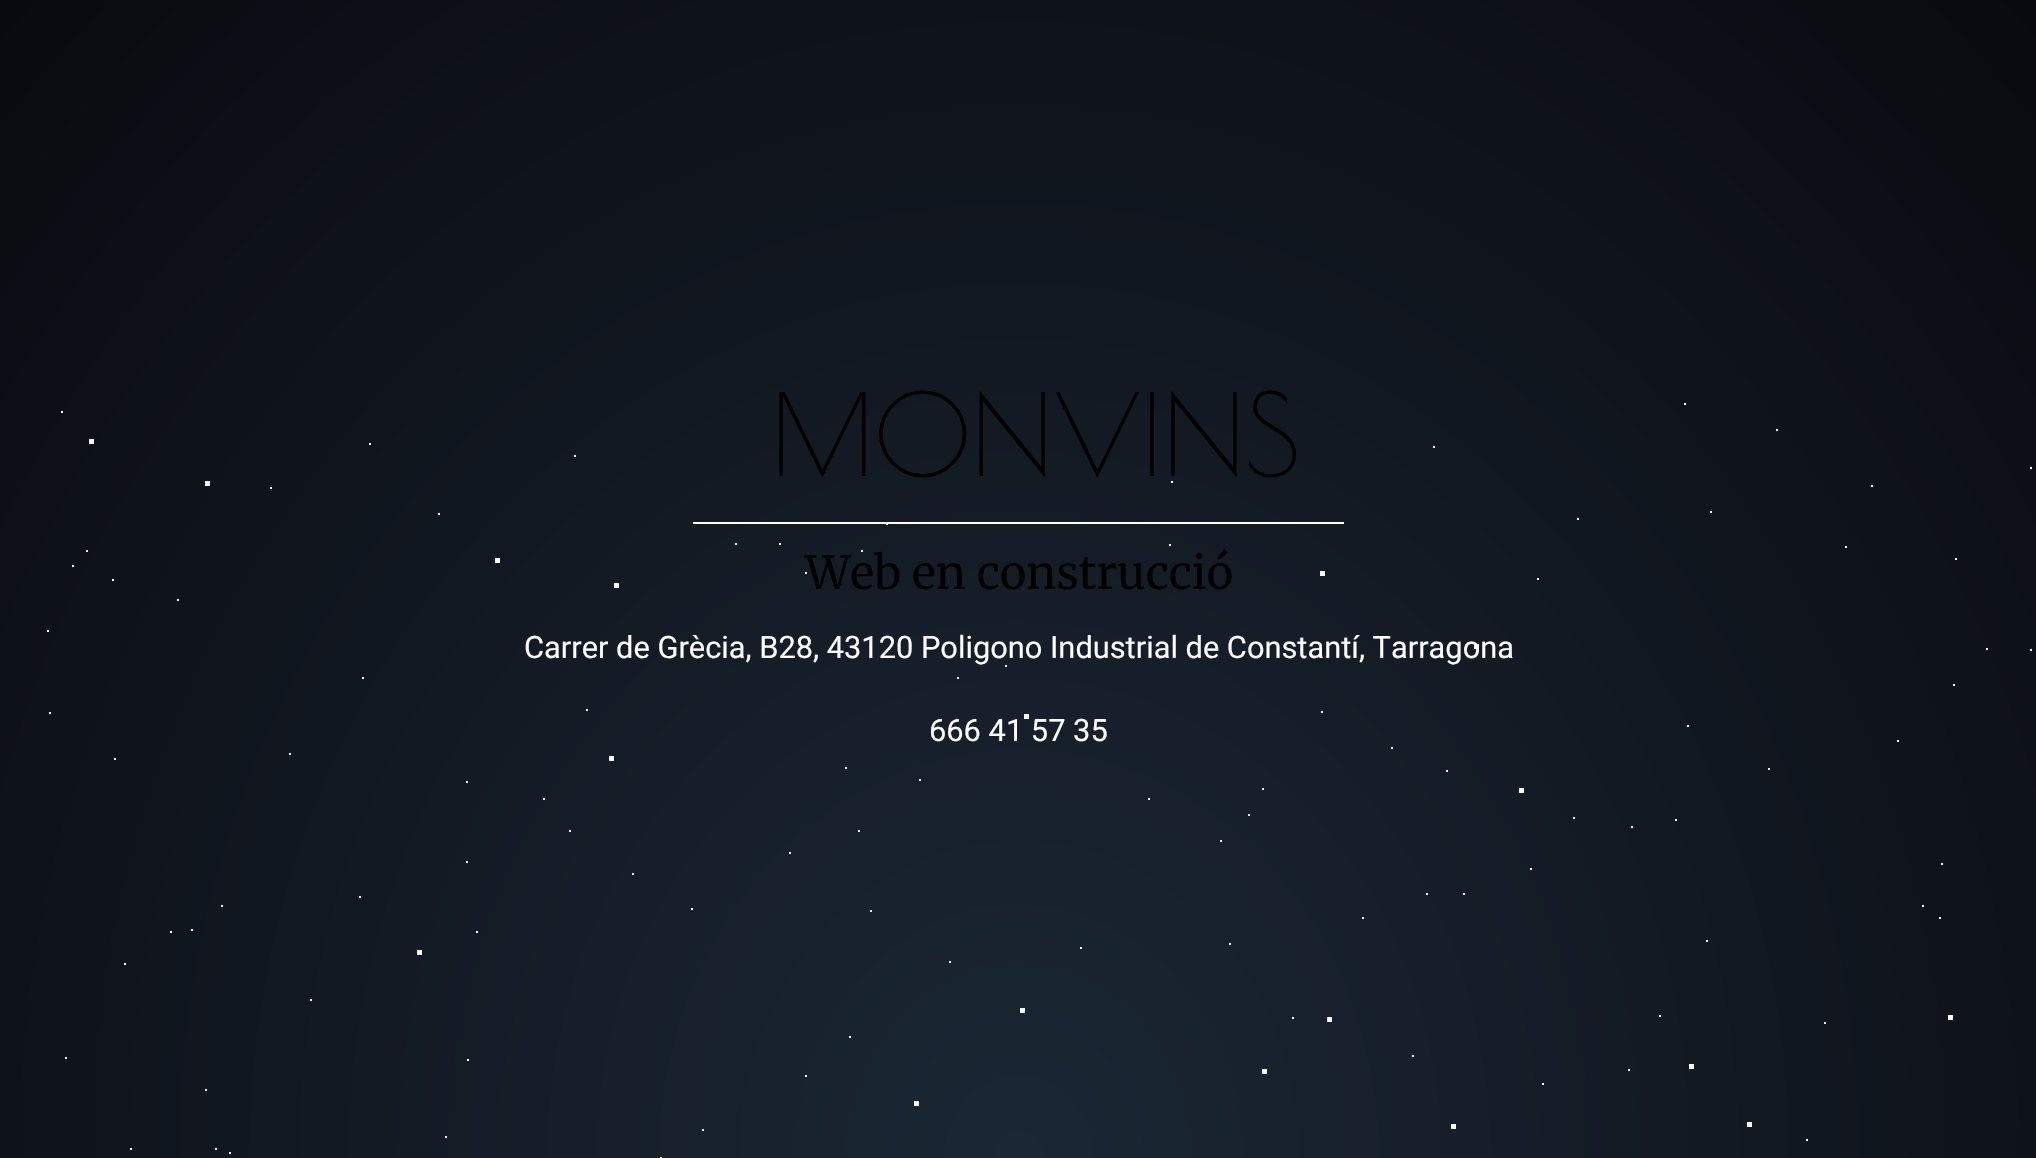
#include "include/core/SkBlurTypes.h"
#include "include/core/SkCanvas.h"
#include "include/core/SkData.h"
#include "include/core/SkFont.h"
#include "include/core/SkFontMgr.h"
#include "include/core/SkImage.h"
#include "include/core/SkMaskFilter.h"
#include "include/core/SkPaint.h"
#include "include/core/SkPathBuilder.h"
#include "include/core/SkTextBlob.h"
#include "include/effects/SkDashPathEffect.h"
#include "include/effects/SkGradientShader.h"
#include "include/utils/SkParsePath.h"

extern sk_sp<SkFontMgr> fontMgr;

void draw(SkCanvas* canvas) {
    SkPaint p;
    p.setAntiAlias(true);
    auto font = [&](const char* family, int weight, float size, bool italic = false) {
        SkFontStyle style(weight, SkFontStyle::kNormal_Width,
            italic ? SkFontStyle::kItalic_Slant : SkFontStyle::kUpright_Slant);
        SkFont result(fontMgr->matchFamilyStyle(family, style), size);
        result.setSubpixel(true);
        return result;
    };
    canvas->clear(0xFFFFFFFF);
    {
        const SkColor colors[] = {0xFF1B2735, 0xFF090A0F};
        const float stops[] = {0, 1};
        SkMatrix m = SkMatrix::Translate(1019, 1159).preScale(1440, 1638);
        p.setShader(SkGradientShader::MakeRadial({0, 0}, 1, colors, stops, 2, SkTileMode::kClamp, 0, &m));
        p.setAlpha(255);
    }
    canvas->drawRect(SkRect::MakeLTRB(0, 0, 2036, 1158), p);
    p.setShader(nullptr);
    p.setColor(0xFFFFFFFF);
    canvas->drawRect(SkRect::MakeLTRB(1022, 446, 1024, 448), p);
    auto font1 = font("Poiret One", 400, 112);
    p.setColor(0xFF000000);
    canvas->drawString("MONVINS", 771, 476, font1, p);
    {
        const struct { float l, t, r, b; SkColor color; } items[] = {
            {693, 522, 1344, 524, 0xFFFFFFFF},
            {805, 572, 807, 574, 0xFFFFFFFF},
            {861, 550, 863, 552, 0xFFFFFFFF},
        };
        for (auto [l, t, r, b, color] : items) {
            p.setColor(color);
            canvas->drawRect(SkRect::MakeLTRB(l, t, r, b), p);
        }
    }
    auto font2 = font("Merriweather", 400, 45.5f);
    p.setColor(0xFF000000);
    canvas->drawString("Web en construcció", 805, 589, font2, p);
    {
        const struct { float l, t, r, b; SkColor color; } items[] = {
            {130, 1148, 132, 1150, 0xFFFFFFFF},
            {1292, 1017, 1294, 1019, 0xFFFFFFFF},
            {215, 1148, 217, 1150, 0xFFFFFFFF},
            {1897, 740, 1899, 742, 0xFFFFFFFF},
            {1391, 747, 1393, 749, 0xFFFFFFFF},
            {112, 579, 114, 581, 0xFFFFFFFF},
            {65, 1057, 67, 1059, 0xFFFFFFFF},
            {1706, 940, 1708, 942, 0xFFFFFFFF},
            {445, 1136, 447, 1138, 0xFFFFFFFF},
            {362, 677, 364, 679, 0xFFFFFFFF},
            {543, 798, 545, 800, 0xFFFFFFFF},
            {1362, 917, 1364, 919, 0xFFFFFFFF},
            {574, 455, 576, 457, 0xFFFFFFFF},
            {1169, 544, 1171, 546, 0xFFFFFFFF},
            {1229, 943, 1231, 945, 0xFFFFFFFF},
            {1628, 1069, 1630, 1071, 0xFFFFFFFF},
            {1939, 917, 1941, 919, 0xFFFFFFFF},
            {1446, 770, 1448, 772, 0xFFFFFFFF},
            {47, 630, 49, 632, 0xFFFFFFFF},
            {476, 931, 478, 933, 0xFFFFFFFF},
            {949, 961, 951, 963, 0xFFFFFFFF},
            {114, 758, 116, 760, 0xFFFFFFFF},
            {702, 1129, 704, 1131, 0xFFFFFFFF},
            {1824, 1022, 1826, 1024, 0xFFFFFFFF},
            {1321, 711, 1323, 713, 0xFFFFFFFF},
            {660, 1157, 662, 1158, 0xFFFFFFFF},
            {2030, 649, 2032, 651, 0xFFFFFFFF},
            {170, 931, 172, 933, 0xFFFFFFFF},
            {632, 873, 634, 875, 0xFFFFFFFF},
            {1806, 1139, 1808, 1141, 0xFFFFFFFF},
            {1953, 684, 1955, 686, 0xFFFFFFFF},
            {957, 677, 959, 679, 0xFFFFFFFF},
            {1631, 826, 1633, 828, 0xFFFFFFFF},
            {1262, 788, 1264, 790, 0xFFFFFFFF},
            {1776, 429, 1778, 431, 0xFFFFFFFF},
            {1148, 798, 1150, 800, 0xFFFFFFFF},
            {1433, 446, 1435, 448, 0xFFFFFFFF},
            {467, 1059, 469, 1061, 0xFFFFFFFF},
            {1986, 648, 1988, 650, 0xFFFFFFFF},
            {177, 599, 179, 601, 0xFFFFFFFF},
            {229, 1152, 231, 1154, 0xFFFFFFFF},
            {1687, 725, 1689, 727, 0xFFFFFFFF},
            {1577, 518, 1579, 520, 0xFFFFFFFF},
            {1537, 578, 1539, 580, 0xFFFFFFFF},
            {1220, 840, 1222, 842, 0xFFFFFFFF},
            {1171, 481, 1173, 483, 0xFFFFFFFF},
            {1426, 893, 1428, 895, 0xFFFFFFFF},
            {289, 753, 291, 755, 0xFFFFFFFF},
            {1005, 665, 1007, 667, 0xFFFFFFFF},
            {1530, 868, 1532, 870, 0xFFFFFFFF},
            {49, 712, 51, 714, 0xFFFFFFFF},
            {1675, 819, 1677, 821, 0xFFFFFFFF},
            {466, 861, 468, 863, 0xFFFFFFFF},
            {1922, 905, 1924, 907, 0xFFFFFFFF},
            {586, 709, 588, 711, 0xFFFFFFFF},
            {1845, 546, 1847, 548, 0xFFFFFFFF},
            {1573, 817, 1575, 819, 0xFFFFFFFF},
            {2030, 467, 2032, 469, 0xFFFFFFFF},
            {191, 929, 193, 931, 0xFFFFFFFF},
            {919, 779, 921, 781, 0xFFFFFFFF},
            {735, 543, 737, 545, 0xFFFFFFFF},
            {805, 1075, 807, 1077, 0xFFFFFFFF},
            {221, 905, 223, 907, 0xFFFFFFFF},
            {845, 767, 847, 769, 0xFFFFFFFF},
            {1941, 863, 1943, 865, 0xFFFFFFFF},
            {270, 487, 272, 489, 0xFFFFFFFF},
            {1463, 893, 1465, 895, 0xFFFFFFFF},
            {61, 411, 63, 413, 0xFFFFFFFF},
            {691, 908, 693, 910, 0xFFFFFFFF},
            {369, 443, 371, 445, 0xFFFFFFFF},
            {1659, 1015, 1661, 1017, 0xFFFFFFFF},
            {1080, 947, 1082, 949, 0xFFFFFFFF},
            {438, 513, 440, 515, 0xFFFFFFFF},
            {1710, 511, 1712, 513, 0xFFFFFFFF},
            {779, 543, 781, 545, 0xFFFFFFFF},
            {72, 565, 74, 567, 0xFFFFFFFF},
            {205, 1089, 207, 1091, 0xFFFFFFFF},
            {1955, 558, 1957, 560, 0xFFFFFFFF},
            {886, 524, 888, 525, 0xFFFFFFFF},
            {870, 910, 872, 912, 0xFFFFFFFF},
            {849, 1036, 851, 1038, 0xFFFFFFFF},
            {1871, 485, 1873, 487, 0xFFFFFFFF},
            {858, 830, 860, 832, 0xFFFFFFFF},
            {789, 852, 791, 854, 0xFFFFFFFF},
            {569, 830, 571, 832, 0xFFFFFFFF},
            {310, 999, 312, 1001, 0xFFFFFFFF},
            {359, 896, 361, 898, 0xFFFFFFFF},
            {1768, 768, 1770, 770, 0xFFFFFFFF},
            {466, 781, 468, 783, 0xFFFFFFFF},
            {1248, 814, 1250, 816, 0xFFFFFFFF},
            {86, 550, 88, 552, 0xFFFFFFFF},
            {1684, 403, 1686, 405, 0xFFFFFFFF},
            {1412, 1055, 1414, 1057, 0xFFFFFFFF},
            {124, 963, 126, 965, 0xFFFFFFFF},
            {1542, 1083, 1544, 1085, 0xFFFFFFFF},
            {495, 558, 500, 563, 0xFFFFFFFF},
            {1519, 788, 1524, 793, 0xFFFFFFFF},
            {1327, 1017, 1332, 1022, 0xFFFFFFFF},
            {89, 439, 94, 444, 0xFFFFFFFF},
            {1262, 1069, 1267, 1074, 0xFFFFFFFF},
            {1689, 1064, 1694, 1069, 0xFFFFFFFF},
            {1948, 1015, 1953, 1020, 0xFFFFFFFF},
            {205, 481, 210, 486, 0xFFFFFFFF},
            {1020, 1008, 1025, 1013, 0xFFFFFFFF},
            {1024, 714, 1029, 719, 0xFFFFFFFF},
            {614, 583, 619, 588, 0xFFFFFFFF},
            {914, 1101, 919, 1106, 0xFFFFFFFF},
            {1747, 1122, 1752, 1127, 0xFFFFFFFF},
            {1320, 571, 1325, 576, 0xFFFFFFFF},
            {417, 950, 422, 955, 0xFFFFFFFF},
            {609, 756, 614, 761, 0xFFFFFFFF},
            {1451, 1124, 1456, 1129, 0xFFFFFFFF},
            {1474, 644, 1479, 649, 0xFFFFFFFF},
        };
        for (auto [l, t, r, b, color] : items) {
            p.setColor(color);
            canvas->drawRect(SkRect::MakeLTRB(l, t, r, b), p);
        }
    }
    auto font3 = font("Roboto", 400, 30.8f);
    canvas->drawString("Carrer de Grècia, B28, 43120 Poligono Industrial de Constantí, Tarragona", 524, 658, font3, p);
    canvas->drawString("666 41 57 35", 929, 741, font3, p);
}
